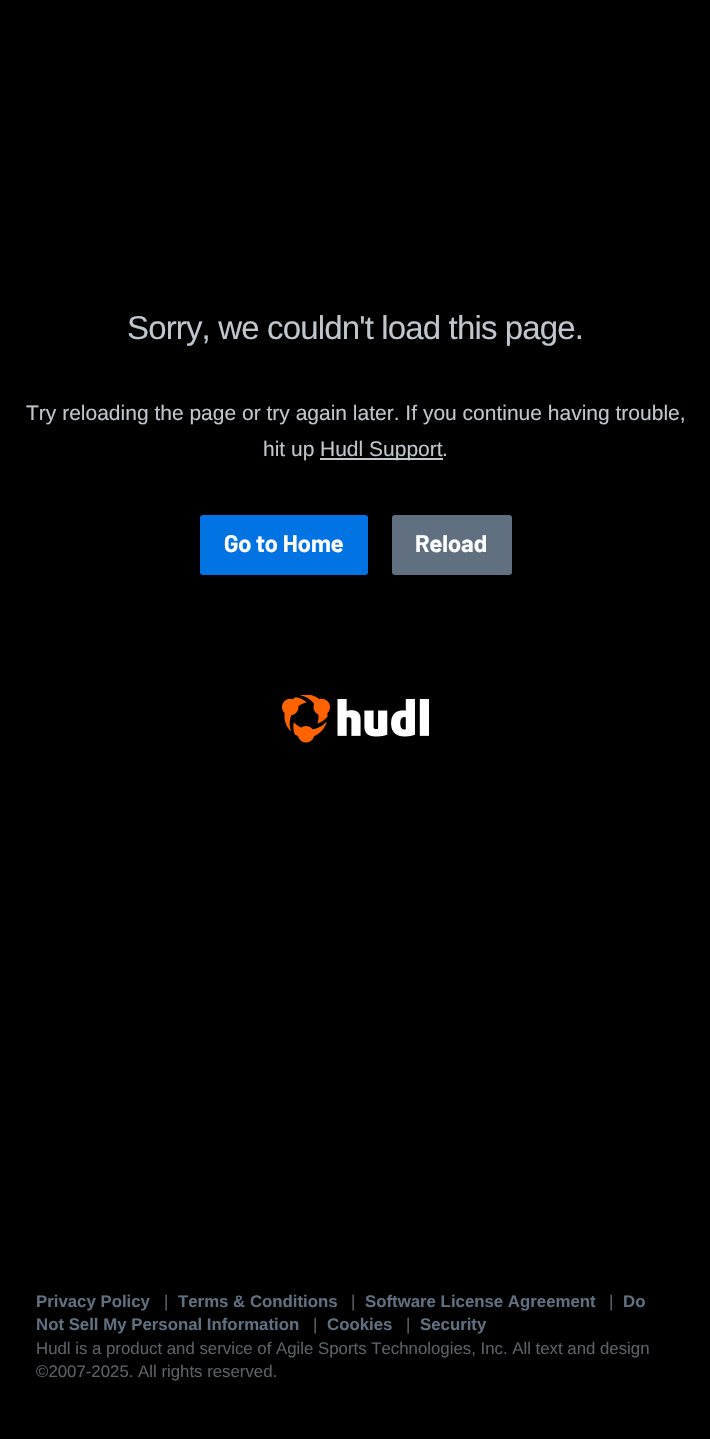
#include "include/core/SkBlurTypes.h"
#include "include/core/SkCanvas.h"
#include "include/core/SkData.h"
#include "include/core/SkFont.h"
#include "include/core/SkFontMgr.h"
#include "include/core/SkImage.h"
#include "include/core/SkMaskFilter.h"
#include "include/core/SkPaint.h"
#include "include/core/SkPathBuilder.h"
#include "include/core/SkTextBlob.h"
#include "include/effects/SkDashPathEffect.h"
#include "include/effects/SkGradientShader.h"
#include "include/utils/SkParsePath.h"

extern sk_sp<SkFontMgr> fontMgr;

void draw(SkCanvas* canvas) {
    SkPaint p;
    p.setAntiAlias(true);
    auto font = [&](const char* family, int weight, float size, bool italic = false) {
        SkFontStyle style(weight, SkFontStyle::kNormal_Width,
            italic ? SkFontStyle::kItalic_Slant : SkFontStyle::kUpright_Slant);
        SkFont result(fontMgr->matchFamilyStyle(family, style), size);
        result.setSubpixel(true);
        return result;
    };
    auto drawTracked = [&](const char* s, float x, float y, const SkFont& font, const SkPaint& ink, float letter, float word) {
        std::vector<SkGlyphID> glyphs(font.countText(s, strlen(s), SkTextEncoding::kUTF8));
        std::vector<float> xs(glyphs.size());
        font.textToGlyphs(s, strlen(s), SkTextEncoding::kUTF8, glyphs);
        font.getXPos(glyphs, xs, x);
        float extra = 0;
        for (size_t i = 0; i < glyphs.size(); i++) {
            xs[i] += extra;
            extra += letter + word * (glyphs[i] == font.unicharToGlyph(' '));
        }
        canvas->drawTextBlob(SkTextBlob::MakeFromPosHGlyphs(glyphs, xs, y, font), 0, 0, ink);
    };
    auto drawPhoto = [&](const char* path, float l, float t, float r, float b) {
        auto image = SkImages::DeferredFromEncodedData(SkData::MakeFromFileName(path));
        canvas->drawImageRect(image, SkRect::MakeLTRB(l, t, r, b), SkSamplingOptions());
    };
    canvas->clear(0xFF000000);
    auto font1 = font("Liberation Sans", 400, 33);
    p.setColor(0xFFC0C6CD);
    drawTracked("Sorry, we couldn't load this page.", 127, 339, font1, p, -0.85f, 0);
    auto font2 = font("Liberation Sans", 400, 21);
    canvas->drawString("Try reloading the page or try again later. If you continue having trouble,", 26, 420, font2, p);
    canvas->drawString("hit up", 263, 456, font2, p);
    canvas->drawRect(SkRect::MakeLTRB(320, 458, 443, 460), p);
    canvas->drawString("Hudl Support", 320, 456, font2, p);
    canvas->drawString(".", 442, 456, font2, p);
    p.setColor(0xFF0273E3);
    canvas->drawRoundRect(SkRect::MakeLTRB(200, 515, 368, 575), 3, 3, p);
    auto font3 = font("Barlow", 700, 24);
    p.setColor(0xFFFEFEFE);
    canvas->drawString("Go to Home", 224, 552, font3, p);
    p.setColor(0xFF607081);
    canvas->drawRoundRect(SkRect::MakeLTRB(392, 515, 512, 575), 3, 3, p);
    p.setColor(0xFFFEFEFE);
    canvas->drawString("Reload", 415, 552, font3, p);
    drawPhoto("media/1.png", 282, 695, 429, 743);
    auto font4 = font("Liberation Sans", 700, 16.8f);
    p.setColor(0xFF607081);
    canvas->drawString("Privacy Policy", 36, 1307, font4, p);
    auto font5 = font("Liberation Sans", 400, 16.8f);
    p.setColor(0xFF5C6166);
    canvas->drawString("|", 164, 1307, font5, p);
    p.setColor(0xFF607081);
    canvas->drawString("Terms & Conditions", 178, 1307, font4, p);
    p.setColor(0xFF5C6166);
    canvas->drawString("|", 351, 1307, font5, p);
    p.setColor(0xFF607081);
    canvas->drawString("Software License Agreement", 365, 1307, font4, p);
    p.setColor(0xFF5C6166);
    canvas->drawString("|", 609, 1307, font5, p);
    p.setColor(0xFF607081);
    canvas->drawString("Do", 623, 1307, font4, p);
    canvas->drawString("Not Sell My Personal Information", 36, 1330, font4, p);
    p.setColor(0xFF5C6166);
    canvas->drawString("|", 313, 1330, font5, p);
    p.setColor(0xFF607081);
    canvas->drawString("Cookies", 327, 1330, font4, p);
    p.setColor(0xFF5C6166);
    canvas->drawString("|", 406, 1330, font5, p);
    p.setColor(0xFF607081);
    canvas->drawString("Security", 420, 1330, font4, p);
    p.setColor(0xFF5C6166);
    canvas->drawString("Hudl is a product and service of Agile Sports Technologies, Inc. All text and design", 36, 1354, font5, p);
    canvas->drawString("©2007-2025. All rights reserved.", 36, 1377, font5, p);
}
